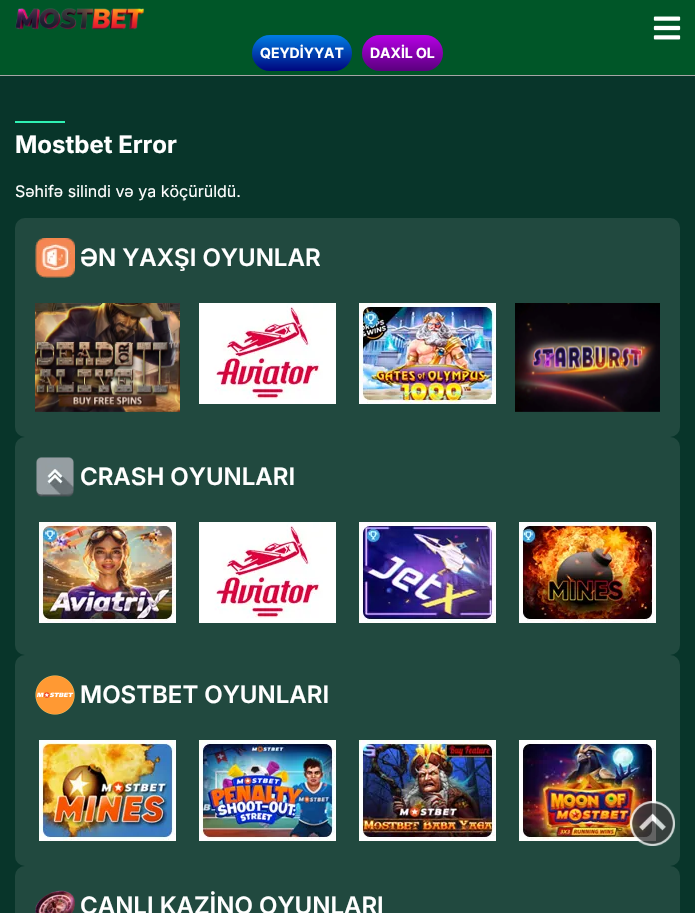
#include "include/core/SkBlurTypes.h"
#include "include/core/SkCanvas.h"
#include "include/core/SkData.h"
#include "include/core/SkFont.h"
#include "include/core/SkFontMgr.h"
#include "include/core/SkImage.h"
#include "include/core/SkMaskFilter.h"
#include "include/core/SkPaint.h"
#include "include/core/SkPathBuilder.h"
#include "include/core/SkTextBlob.h"
#include "include/effects/SkDashPathEffect.h"
#include "include/effects/SkGradientShader.h"
#include "include/utils/SkParsePath.h"

extern sk_sp<SkFontMgr> fontMgr;

void draw(SkCanvas* canvas) {
    SkPaint p;
    p.setAntiAlias(true);
    auto font = [&](const char* family, int weight, float size, bool italic = false) {
        SkFontStyle style(weight, SkFontStyle::kNormal_Width,
            italic ? SkFontStyle::kItalic_Slant : SkFontStyle::kUpright_Slant);
        SkFont result(fontMgr->matchFamilyStyle(family, style), size);
        result.setSubpixel(true);
        return result;
    };
    auto drawPhoto = [&](const char* path, float l, float t, float r, float b) {
        auto image = SkImages::DeferredFromEncodedData(SkData::MakeFromFileName(path));
        canvas->drawImageRect(image, SkRect::MakeLTRB(l, t, r, b), SkSamplingOptions());
    };
    canvas->clear(0xFF08352A);
    p.setColor(0xFF005628);
    canvas->drawRect(SkRect::MakeLTRB(0, 0, 695, 75), p);
    p.setColor(0xFFA5A5A5);
    canvas->drawRect(SkRect::MakeLTRB(0, 75, 695, 76), p);
    drawPhoto("media/1.png", 15, 8, 145, 30);
    drawPhoto("media/2.png", 653, 16, 681, 40);
    {
        const SkColor colors[] = {0xFF007DE4, 0xFF00067E};
        const float stops[] = {0, 1};
        const SkPoint ends[] = {{302, 35}, {302, 71}};
        p.setShader(SkGradientShader::MakeLinear(ends, colors, stops, 2, SkTileMode::kClamp));
        p.setAlpha(255);
    }
    canvas->drawRoundRect(SkRect::MakeLTRB(252, 35, 352, 71), 18, 18, p);
    auto font1 = font("Inter", 700, 14);
    p.setShader(nullptr);
    p.setColor(0xFFFFFFFF);
    canvas->drawString("QEYDİYYAT", 260, 58, font1, p);
    {
        const SkColor colors[] = {0xFFB600E4, 0xFF5A007E};
        const float stops[] = {0, 1};
        const SkPoint ends[] = {{403, 35}, {403, 71}};
        p.setShader(SkGradientShader::MakeLinear(ends, colors, stops, 2, SkTileMode::kClamp));
        p.setAlpha(255);
    }
    canvas->drawRoundRect(SkRect::MakeLTRB(362, 35, 443, 71), 18, 18, p);
    p.setShader(nullptr);
    p.setColor(0xFFFFFFFF);
    canvas->drawString("DAXİL OL", 370, 58, font1, p);
    p.setColor(0xFF2FF2B4);
    canvas->drawRect(SkRect::MakeLTRB(15, 121, 65, 123), p);
    auto font2 = font("Inter", 700, 24);
    p.setColor(0xFFFFFFFF);
    canvas->drawString("Mostbet Error", 15, 153, font2, p);
    auto font3 = font("Inter", 400, 16);
    canvas->drawString("Səhifə silindi və ya köçürüldü.", 15, 197, font3, p);
    p.setColor(0xFF21493F);
    canvas->drawRoundRect(SkRect::MakeLTRB(15, 218, 680, 437), 10, 10, p);
    drawPhoto("media/3.png", 35, 238, 75, 278);
    auto font4 = font("Inter", 600, 24);
    p.setColor(0xFFFFFFFF);
    canvas->drawString("ƏN YAXŞI OYUNLAR", 80, 266, font4, p);
    drawPhoto("media/4.png", 35, 303, 180, 412);
    drawPhoto("media/5.png", 199, 303, 336, 404);
    drawPhoto("media/6.png", 359, 303, 496, 404);
    drawPhoto("media/7.png", 515, 303, 660, 412);
    p.setColor(0xFF21493F);
    canvas->drawRoundRect(SkRect::MakeLTRB(15, 437, 680, 655), 10, 10, p);
    drawPhoto("media/8.png", 36, 457, 74, 497);
    p.setColor(0xFFFFFFFF);
    canvas->drawString("CRASH OYUNLARI", 80, 485, font4, p);
    drawPhoto("media/9.png", 39, 522, 176, 623);
    drawPhoto("media/5.png", 199, 522, 336, 623);
    drawPhoto("media/10.png", 359, 522, 496, 623);
    drawPhoto("media/11.png", 519, 522, 656, 623);
    p.setColor(0xFF21493F);
    canvas->drawRoundRect(SkRect::MakeLTRB(15, 655, 680, 866), 10, 10, p);
    drawPhoto("media/12.png", 35, 675, 75, 715);
    p.setColor(0xFFFFFFFF);
    canvas->drawString("MOSTBET OYUNLARI", 80, 703, font4, p);
    drawPhoto("media/13.png", 39, 740, 176, 841);
    drawPhoto("media/14.png", 199, 740, 336, 841);
    drawPhoto("media/15.png", 359, 740, 496, 841);
    drawPhoto("media/16.png", 519, 740, 656, 841);
    p.setColor(0xFF21493F);
    canvas->drawRoundRect(SkRect::MakeLTRB(15, 866, 680, 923), 10, 10, p);
    drawPhoto("media/17.png", 35, 890, 75, 913);
    p.setColor(0xFFFFFFFF);
    canvas->drawString("CANLI KAZİNO OYUNLARI", 80, 914, font4, p);
    drawPhoto("media/18.png", 630, 801, 675, 846);
}
